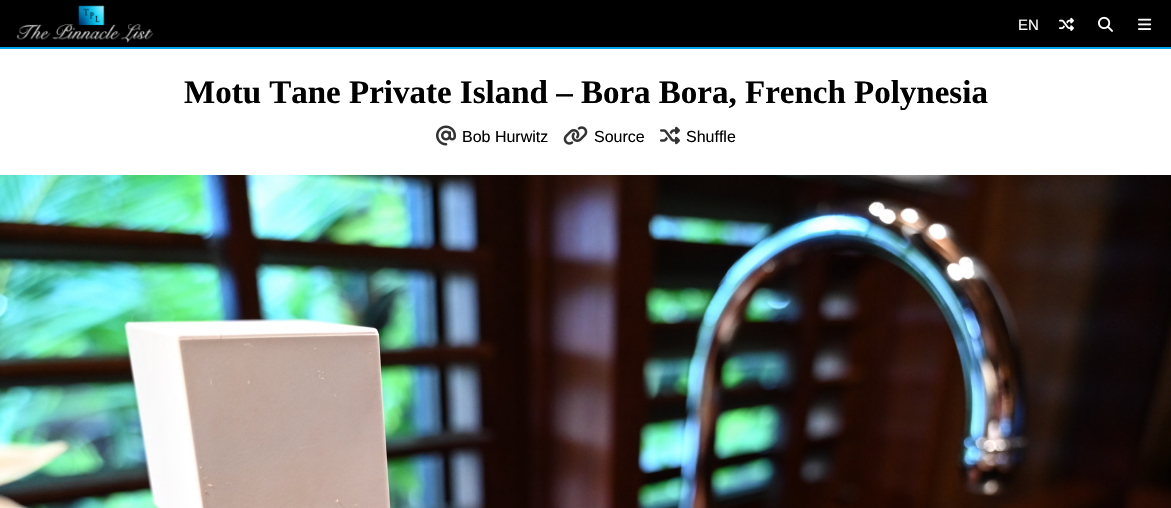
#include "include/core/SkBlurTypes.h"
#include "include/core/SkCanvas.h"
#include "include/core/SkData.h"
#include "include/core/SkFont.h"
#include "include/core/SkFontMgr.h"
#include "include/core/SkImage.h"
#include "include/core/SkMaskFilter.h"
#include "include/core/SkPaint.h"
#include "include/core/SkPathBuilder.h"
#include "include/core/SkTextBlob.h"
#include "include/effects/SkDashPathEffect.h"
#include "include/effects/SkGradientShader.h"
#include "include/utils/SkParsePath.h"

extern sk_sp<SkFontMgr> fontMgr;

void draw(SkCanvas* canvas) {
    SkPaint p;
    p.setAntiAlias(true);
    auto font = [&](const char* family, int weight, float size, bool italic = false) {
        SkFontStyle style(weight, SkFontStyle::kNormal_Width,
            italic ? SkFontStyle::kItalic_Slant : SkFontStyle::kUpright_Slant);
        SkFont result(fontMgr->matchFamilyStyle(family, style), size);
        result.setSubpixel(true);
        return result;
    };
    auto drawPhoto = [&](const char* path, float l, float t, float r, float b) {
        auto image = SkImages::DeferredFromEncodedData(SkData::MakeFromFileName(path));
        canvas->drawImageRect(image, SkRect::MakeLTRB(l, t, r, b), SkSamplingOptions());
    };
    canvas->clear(0xFF000000);
    p.setColor(0xFFFFFFFF);
    canvas->drawRect(SkRect::MakeLTRB(0, 49, 1171, 175), p);
    p.setColor(0xFF00A4E8);
    canvas->drawRect(SkRect::MakeLTRB(0, 47, 1171, 49), p);
    drawPhoto("media/1.png", 16, 5, 154, 43);
    auto font1 = font("Liberation Sans", 400, 15);
    p.setColor(0xFFFFFFFF);
    canvas->drawString("EN", 1018, 30, font1, p);
    drawPhoto("media/2.png", 1059, 17, 1074, 31);
    drawPhoto("media/3.png", 1098, 16, 1113, 32);
    drawPhoto("media/4.png", 1138, 18, 1152, 30);
    auto font2 = font("Liberation Serif", 700, 33);
    p.setColor(0xFF000000);
    canvas->drawString("Motu Tane Private Island – Bora Bora, French Polynesia", 184, 103, font2, p);
    drawPhoto("media/5.png", 436, 125, 456, 146);
    auto font3 = font("Liberation Sans", 400, 16);
    canvas->drawString("Bob Hurwitz", 462, 142, font3, p);
    drawPhoto("media/6.png", 563, 126, 588, 145);
    canvas->drawString("Source", 594, 142, font3, p);
    drawPhoto("media/7.png", 660, 126, 680, 145);
    canvas->drawString("Shuffle", 686, 142, font3, p);
    drawPhoto("media/8.png", 0, 175, 1171, 508);
}
